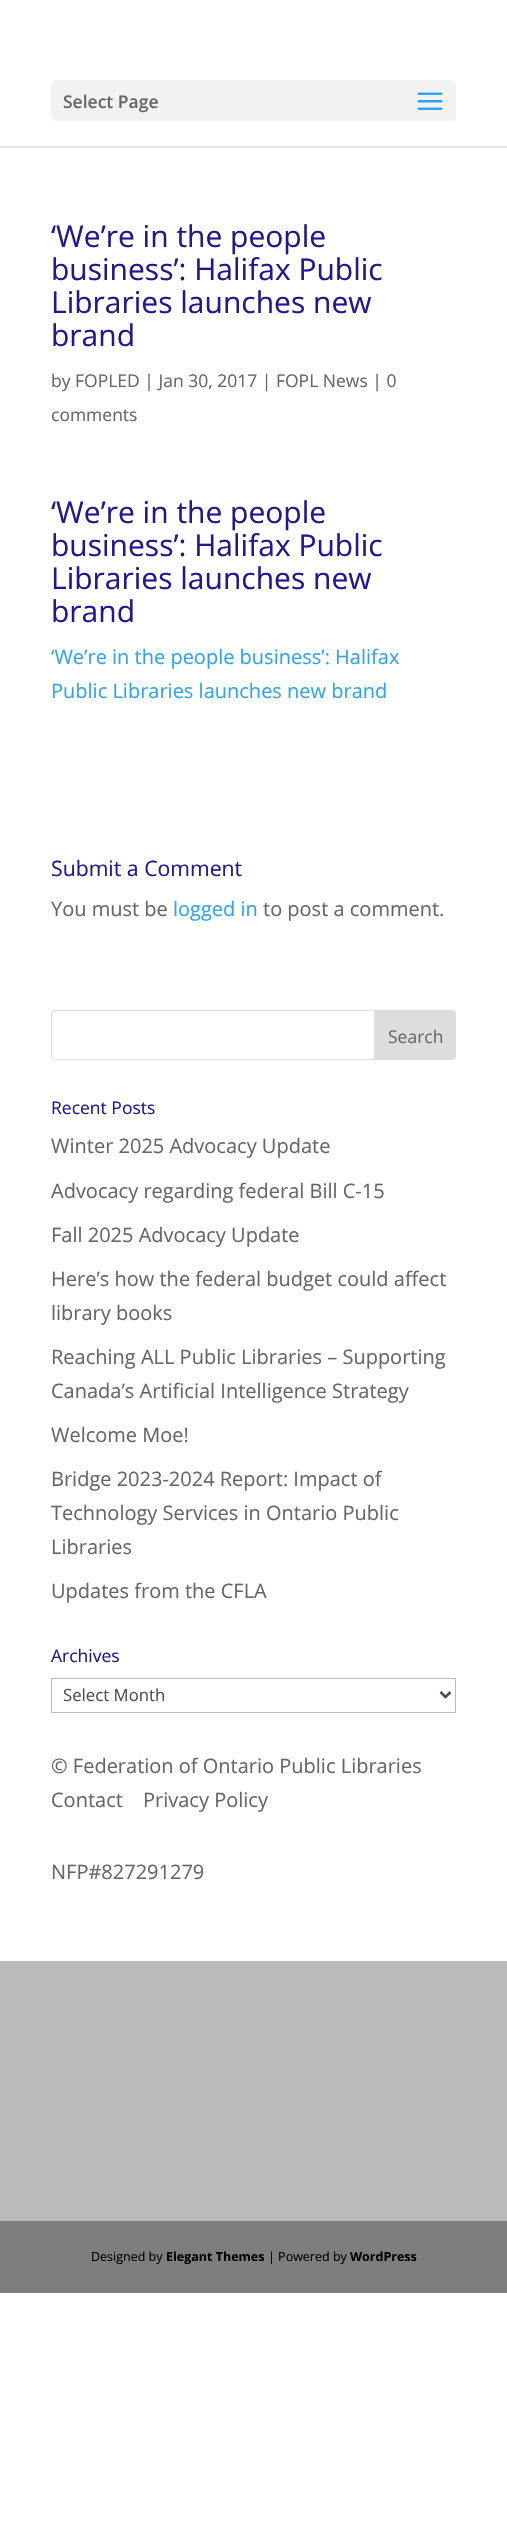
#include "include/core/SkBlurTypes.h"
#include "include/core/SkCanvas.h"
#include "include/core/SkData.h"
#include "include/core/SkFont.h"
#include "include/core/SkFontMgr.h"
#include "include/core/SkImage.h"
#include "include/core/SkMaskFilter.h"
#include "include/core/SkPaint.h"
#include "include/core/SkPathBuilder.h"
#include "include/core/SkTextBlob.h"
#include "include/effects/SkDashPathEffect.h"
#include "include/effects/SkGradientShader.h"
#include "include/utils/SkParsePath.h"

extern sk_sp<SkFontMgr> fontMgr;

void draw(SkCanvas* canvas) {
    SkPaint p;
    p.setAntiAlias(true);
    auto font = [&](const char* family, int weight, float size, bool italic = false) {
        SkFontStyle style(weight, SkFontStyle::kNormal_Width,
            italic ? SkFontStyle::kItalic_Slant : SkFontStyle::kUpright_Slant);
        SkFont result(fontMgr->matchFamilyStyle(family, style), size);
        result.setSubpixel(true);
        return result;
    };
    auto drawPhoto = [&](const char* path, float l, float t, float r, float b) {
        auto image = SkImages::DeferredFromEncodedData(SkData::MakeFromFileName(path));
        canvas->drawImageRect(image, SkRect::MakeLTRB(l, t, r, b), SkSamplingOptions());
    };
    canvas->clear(0xFFFFFFFF);
    p.setColor(0xFFE6E6E6);
    canvas->drawPath(SkPathBuilder().moveTo(0, 146).lineTo(0, 148).lineTo(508, 148).lineTo(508, 1).lineTo(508, 146).close().detach(), p);
    p.setColor(0xFFF2F2F2);
    canvas->drawRoundRect(SkRect::MakeLTRB(51, 80, 456, 121), 6, 6, p);
    auto font1 = font("Open Sans", 600, 17.5f);
    p.setColor(0xFF666666);
    canvas->drawString("Select Page", 63, 108, font1, p);
    drawPhoto("media/1.png", 417, 92, 443, 110);
    auto font2 = font("Open Sans", 400, 30);
    p.setColor(0xFF221596);
    {
        const struct { const char* s; float x, y; } items[] = {
            {"‘We’re in the people", 51, 247},
            {"business’: Halifax Public", 51, 280},
            {"Libraries launches new", 51, 313},
            {"brand", 51, 346},
        };
        for (auto [s, x, y] : items) {
            canvas->drawString(s, x, y, font2, p);
        }
    }
    auto font3 = font("Open Sans", 400, 17.5f);
    p.setColor(0xFF666666);
    canvas->drawString("by FOPLED | Jan 30, 2017 | FOPL News | 0", 51, 387, font3, p);
    canvas->drawString("comments", 51, 421, font3, p);
    p.setColor(0xFF221596);
    {
        const struct { const char* s; float x, y; } items[] = {
            {"‘We’re in the people", 51, 523},
            {"business’: Halifax Public", 51, 556},
            {"Libraries launches new", 51, 589},
            {"brand", 51, 622},
        };
        for (auto [s, x, y] : items) {
            canvas->drawString(s, x, y, font2, p);
        }
    }
    auto font4 = font("Open Sans", 400, 20);
    p.setColor(0xFF2EA3F2);
    canvas->drawString("‘We’re in the people business’: Halifax", 51, 664, font4, p);
    canvas->drawString("Public Libraries launches new brand", 51, 698, font4, p);
    auto font5 = font("Open Sans", 400, 21.25f);
    p.setColor(0xFF221596);
    canvas->drawString("Submit a Comment", 51, 876, font5, p);
    p.setColor(0xFF666666);
    canvas->drawString("You must be", 51, 916, font4, p);
    p.setColor(0xFF2EA3F2);
    canvas->drawString("logged in", 173, 916, font4, p);
    p.setColor(0xFF666666);
    canvas->drawString("to post a comment.", 263, 916, font4, p);
    p.setStyle(SkPaint::kStroke_Style);
    p.setStrokeWidth(1);
    p.setColor(0xFFDDDDDD);
    canvas->drawRoundRect(SkRect::MakeLTRB(51.5f, 1010.5f, 455.5f, 1059.5f), 3.5f, 3.5f, p);
    p.setStyle(SkPaint::kFill_Style);
    canvas->drawPath(SkPathBuilder().moveTo(374.5f, 1010.5f).lineTo(452, 1010.5f).cubicTo(454, 1010.5f, 455.5f, 1012, 455.5f, 1014).lineTo(455.5f, 1056).cubicTo(455.5f, 1058, 454, 1059.5f, 452, 1059.5f).lineTo(374.5f, 1059.5f).close().detach(), p);
    p.setStyle(SkPaint::kStroke_Style);
    canvas->drawPath(SkPathBuilder().moveTo(374.5f, 1010.5f).lineTo(452, 1010.5f).cubicTo(454, 1010.5f, 455.5f, 1012, 455.5f, 1014).lineTo(455.5f, 1056).cubicTo(455.5f, 1058, 454, 1059.5f, 452, 1059.5f).lineTo(374.5f, 1059.5f).close().detach(), p);
    p.setStyle(SkPaint::kFill_Style);
    p.setColor(0xFF666666);
    canvas->drawString("Search", 388, 1043, font3, p);
    p.setColor(0xFF221596);
    canvas->drawString("Recent Posts", 51, 1114, font3, p);
    p.setColor(0xFF666666);
    {
        const struct { const char* s; float x, y; } items[] = {
            {"Winter 2025 Advocacy Update", 51, 1153},
            {"Advocacy regarding federal Bill C-15", 51, 1198},
            {"Fall 2025 Advocacy Update", 51, 1242},
            {"Here’s how the federal budget could affect", 51, 1286},
            {"library books", 51, 1320},
            {"Reaching ALL Public Libraries – Supporting", 51, 1364},
            {"Canada’s Artificial Intelligence Strategy", 51, 1398},
            {"Welcome Moe!", 51, 1442},
            {"Bridge 2023-2024 Report: Impact of", 51, 1486},
            {"Technology Services in Ontario Public", 51, 1520},
            {"Libraries", 51, 1554},
            {"Updates from the CFLA", 51, 1598},
        };
        for (auto [s, x, y] : items) {
            canvas->drawString(s, x, y, font4, p);
        }
    }
    p.setColor(0xFF221596);
    canvas->drawString("Archives", 51, 1662, font3, p);
    p.setStyle(SkPaint::kStroke_Style);
    p.setColor(0xFFBBBBBB);
    canvas->drawRect(SkRect::MakeLTRB(51.5f, 1678.5f, 455.5f, 1712.5f), p);
    p.setStrokeWidth(2.5f);
    p.setColor(0xFF4E4E4E);
    canvas->drawPath(SkPathBuilder().moveTo(440.5f, 1692).lineTo(445.5f, 1697).lineTo(450.5f, 1692).detach(), p);
    auto font6 = font("Open Sans", 400, 16.75f);
    p.setStyle(SkPaint::kFill_Style);
    canvas->drawString("Select Month", 63, 1701, font6, p);
    p.setColor(0xFF666666);
    {
        const struct { const char* s; float x, y; } items[] = {
            {"© Federation of Ontario Public Libraries", 51, 1773},
            {"Contact", 51, 1807},
            {"Privacy Policy", 143, 1807},
            {"NFP#827291279", 51, 1879},
        };
        for (auto [s, x, y] : items) {
            canvas->drawString(s, x, y, font4, p);
        }
    }
    p.setColor(0xFFBABABA);
    canvas->drawRect(SkRect::MakeLTRB(0, 1961, 507, 2221), p);
    p.setColor(0xFF7E7E7E);
    canvas->drawRect(SkRect::MakeLTRB(0, 2221, 507, 2293), p);
    auto font7 = font("Open Sans", 400, 12.5f);
    p.setColor(0xFF000000);
    canvas->drawString("Designed by", 91, 2261, font7, p);
    auto font8 = font("Open Sans", 700, 12.5f);
    canvas->drawString("Elegant Themes", 166, 2261, font8, p);
    canvas->drawString("| Powered by", 268, 2261, font7, p);
    canvas->drawString("WordPress", 350, 2261, font8, p);
}
